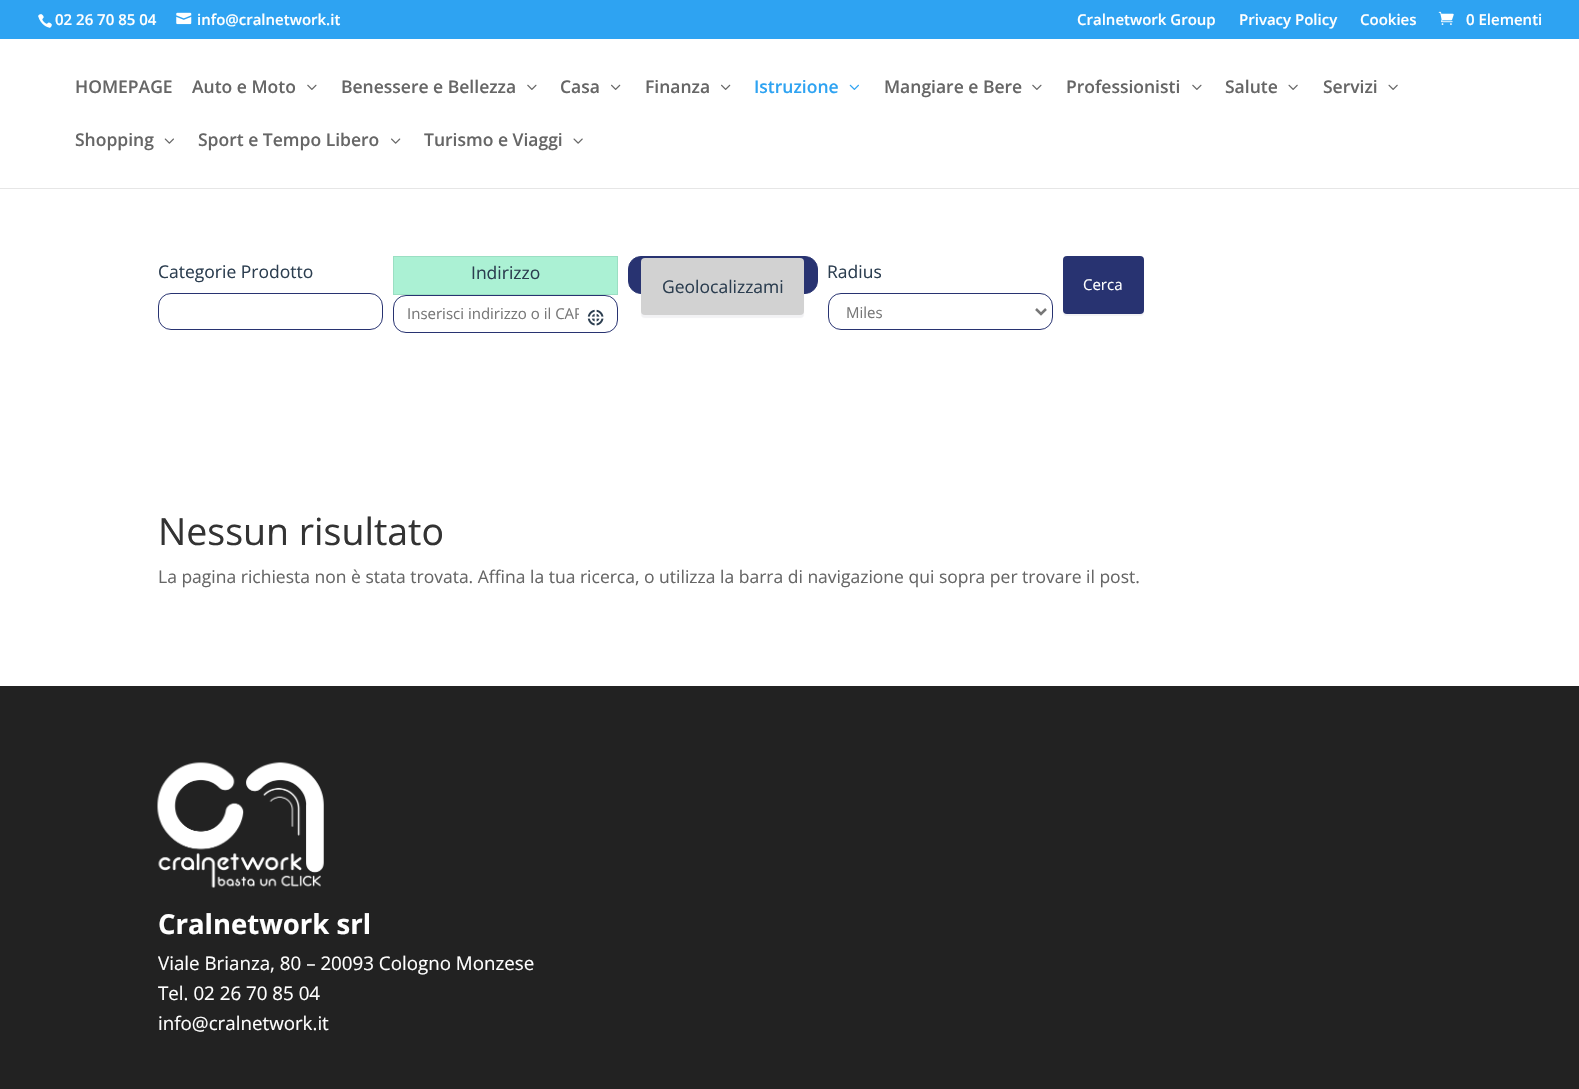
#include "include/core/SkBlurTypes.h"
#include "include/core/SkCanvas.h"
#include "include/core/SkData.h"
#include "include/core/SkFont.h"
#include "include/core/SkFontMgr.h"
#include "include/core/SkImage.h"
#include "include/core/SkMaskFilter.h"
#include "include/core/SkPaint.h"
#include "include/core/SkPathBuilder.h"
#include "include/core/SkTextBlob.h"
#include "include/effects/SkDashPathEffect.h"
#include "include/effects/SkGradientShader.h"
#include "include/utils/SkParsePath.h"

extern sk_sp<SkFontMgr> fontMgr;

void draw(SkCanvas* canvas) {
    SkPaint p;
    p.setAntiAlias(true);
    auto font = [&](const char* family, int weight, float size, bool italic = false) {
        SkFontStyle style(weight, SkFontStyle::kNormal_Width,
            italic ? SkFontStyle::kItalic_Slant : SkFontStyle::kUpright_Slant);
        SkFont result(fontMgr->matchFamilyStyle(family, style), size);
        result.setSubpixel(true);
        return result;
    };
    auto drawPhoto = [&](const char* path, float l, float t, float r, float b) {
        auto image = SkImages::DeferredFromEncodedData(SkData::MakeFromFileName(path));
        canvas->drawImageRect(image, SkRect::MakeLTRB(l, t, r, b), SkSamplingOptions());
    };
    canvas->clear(0xFFFFFFFF);
    p.setColor(0xFF2EA3F2);
    canvas->drawRect(SkRect::MakeLTRB(0, 0, 1579, 39), p);
    drawPhoto("media/1.png", 38, 14, 52, 28);
    auto font1 = font("Open Sans", 600, 15);
    p.setColor(0xFFFFFFFF);
    canvas->drawString("02 26 70 85 04", 55, 25, font1, p);
    drawPhoto("media/2.png", 176, 12, 192, 25);
    {
        const struct { const char* s; float x, y; } items[] = {
            {"info@cralnetwork.it", 197, 25},
            {"Cralnetwork Group", 1077, 25},
            {"Privacy Policy", 1239, 25},
            {"Cookies", 1360, 25},
        };
        for (auto [s, x, y] : items) {
            canvas->drawString(s, x, y, font1, p);
        }
    }
    drawPhoto("media/3.png", 1438, 11, 1454, 25);
    canvas->drawString("0 Elementi", 1466, 25, font1, p);
    p.setColor(0xFFE6E6E6);
    canvas->drawRect(SkRect::MakeLTRB(0, 188, 1579, 189), p);
    auto font2 = font("Open Sans", 600, 17.5f);
    p.setColor(0xFF666666);
    canvas->drawString("HOMEPAGE", 75, 93, font2, p);
    canvas->drawString("Auto e Moto", 192, 93, font2, p);
    drawPhoto("media/4.png", 307, 84, 317, 90);
    canvas->drawString("Benessere e Bellezza", 341, 93, font2, p);
    drawPhoto("media/4.png", 527, 84, 537, 90);
    canvas->drawString("Casa", 560, 93, font2, p);
    drawPhoto("media/5.png", 611, 84, 621, 90);
    canvas->drawString("Finanza", 645, 93, font2, p);
    drawPhoto("media/5.png", 721, 84, 731, 90);
    p.setColor(0xFF2EA3F2);
    canvas->drawString("Istruzione", 754, 93, font2, p);
    drawPhoto("media/6.png", 849, 84, 859, 90);
    p.setColor(0xFF666666);
    canvas->drawString("Mangiare e Bere", 884, 93, font2, p);
    drawPhoto("media/4.png", 1032, 84, 1042, 90);
    canvas->drawString("Professionisti", 1066, 93, font2, p);
    drawPhoto("media/4.png", 1192, 84, 1202, 90);
    canvas->drawString("Salute", 1225, 93, font2, p);
    drawPhoto("media/7.png", 1288, 84, 1298, 90);
    canvas->drawString("Servizi", 1323, 93, font2, p);
    drawPhoto("media/7.png", 1388, 84, 1398, 90);
    canvas->drawString("Shopping", 75, 146, font2, p);
    drawPhoto("media/8.png", 164, 138, 174, 144);
    canvas->drawString("Sport e Tempo Libero", 198, 146, font2, p);
    drawPhoto("media/9.png", 391, 138, 401, 144);
    canvas->drawString("Turismo e Viaggi", 424, 146, font2, p);
    drawPhoto("media/10.png", 573, 138, 583, 144);
    auto font3 = font("Open Sans", 400, 17.5f);
    p.setColor(0xFF2C3E50);
    canvas->drawString("Categorie Prodotto", 158, 278, font3, p);
    p.setStyle(SkPaint::kStroke_Style);
    p.setStrokeWidth(1);
    p.setColor(0xFF283371);
    canvas->drawRoundRect(SkRect::MakeLTRB(158.5f, 293.5f, 382.5f, 329.5f), 12.5f, 12.5f, p);
    p.setStyle(SkPaint::kFill_Style);
    p.setColor(0xFFABF1D4);
    canvas->drawRect(SkRect::MakeLTRB(393.5f, 256.5f, 617.5f, 294.5f), p);
    p.setStyle(SkPaint::kStroke_Style);
    p.setColor(0xFF9BDFC3);
    canvas->drawRect(SkRect::MakeLTRB(393.5f, 256.5f, 617.5f, 294.5f), p);
    p.setStyle(SkPaint::kFill_Style);
    p.setColor(0xFF2C3E50);
    canvas->drawString("Indirizzo", 471, 279, font3, p);
    p.setStyle(SkPaint::kStroke_Style);
    p.setColor(0xFF283371);
    canvas->drawRoundRect(SkRect::MakeLTRB(393.5f, 295.5f, 617.5f, 332.5f), 12.5f, 12.5f, p);
    canvas->save();
    canvas->clipRect(SkRect::MakeLTRB(406, 304, 579, 325));
    auto font4 = font("Open Sans", 400, 15);
    p.setStyle(SkPaint::kFill_Style);
    p.setColor(0xFF777777);
    canvas->drawString("Inserisci indirizzo o il CAP", 407, 319, font4, p);
    canvas->restore();
    drawPhoto("media/11.png", 587, 309, 604, 326);
    p.setColor(0xFF283371);
    canvas->drawRoundRect(SkRect::MakeLTRB(628.5f, 256.5f, 817.5f, 293.5f), 12.5f, 12.5f, p);
    p.setStyle(SkPaint::kStroke_Style);
    canvas->drawRoundRect(SkRect::MakeLTRB(628.5f, 256.5f, 817.5f, 293.5f), 12.5f, 12.5f, p);
    p.setStyle(SkPaint::kFill_Style);
    p.setColor(0x0F1C1F3F);
    p.setMaskFilter(SkMaskFilter::MakeBlur(kNormal_SkBlurStyle, 0.5f));
    canvas->drawRoundRect(SkRect::MakeLTRB(641, 260, 804, 318), 4, 4, p);
    p.setMaskFilter(nullptr);
    p.setColor(0xFFD2D2D2);
    canvas->drawRoundRect(SkRect::MakeLTRB(641, 258, 804, 315), 4, 4, p);
    p.setColor(0xFF2C3E50);
    canvas->drawString("Geolocalizzami", 662, 293, font3, p);
    canvas->drawString("Radius", 827, 278, font3, p);
    p.setStyle(SkPaint::kStroke_Style);
    p.setColor(0xFF283371);
    canvas->drawRoundRect(SkRect::MakeLTRB(828.5f, 293.5f, 1052.5f, 329.5f), 12.5f, 12.5f, p);
    p.setStrokeWidth(2.5f);
    p.setColor(0xFF777777);
    canvas->drawPath(SkPathBuilder().moveTo(1036, 309).lineTo(1041, 314).lineTo(1046, 309).detach(), p);
    p.setStyle(SkPaint::kFill_Style);
    canvas->drawString("Miles", 846, 318, font4, p);
    p.setColor(0x0F1C1F3F);
    p.setMaskFilter(SkMaskFilter::MakeBlur(kNormal_SkBlurStyle, 0.5f));
    canvas->drawRoundRect(SkRect::MakeLTRB(1063, 259, 1144, 316), 4, 4, p);
    p.setMaskFilter(nullptr);
    p.setColor(0xFF283371);
    canvas->drawRoundRect(SkRect::MakeLTRB(1063, 256, 1144, 314), 4, 4, p);
    p.setColor(0xFFFFFFFF);
    canvas->drawString("Cerca", 1083, 290, font4, p);
    auto font5 = font("Open Sans", 400, 37.5f);
    p.setColor(0xFF333333);
    canvas->drawString("Nessun risultato", 158, 545, font5, p);
    p.setColor(0xFF666666);
    canvas->drawString("La pagina richiesta non è stata trovata. Affina la tua ricerca, o utilizza la barra di navigazione qui sopra per trovare il post.", 158, 583, font3, p);
    p.setColor(0xFF222222);
    canvas->drawRect(SkRect::MakeLTRB(0, 686, 1579, 1089), p);
    drawPhoto("media/12.png", 157, 762, 324, 888);
    auto font6 = font("Open Sans", 700, 27.5f);
    p.setColor(0xFFFFFFFF);
    canvas->drawString("Cralnetwork srl", 158, 934, font6, p);
    auto font7 = font("Open Sans", 400, 18.75f);
    {
        const struct { const char* s; float x, y; } items[] = {
            {"Viale Brianza, 80 – 20093 Cologno Monzese", 158, 970},
            {"Tel. 02 26 70 85 04", 158, 1000},
            {"info@cralnetwork.it", 158, 1030},
        };
        for (auto [s, x, y] : items) {
            canvas->drawString(s, x, y, font7, p);
        }
    }
}
